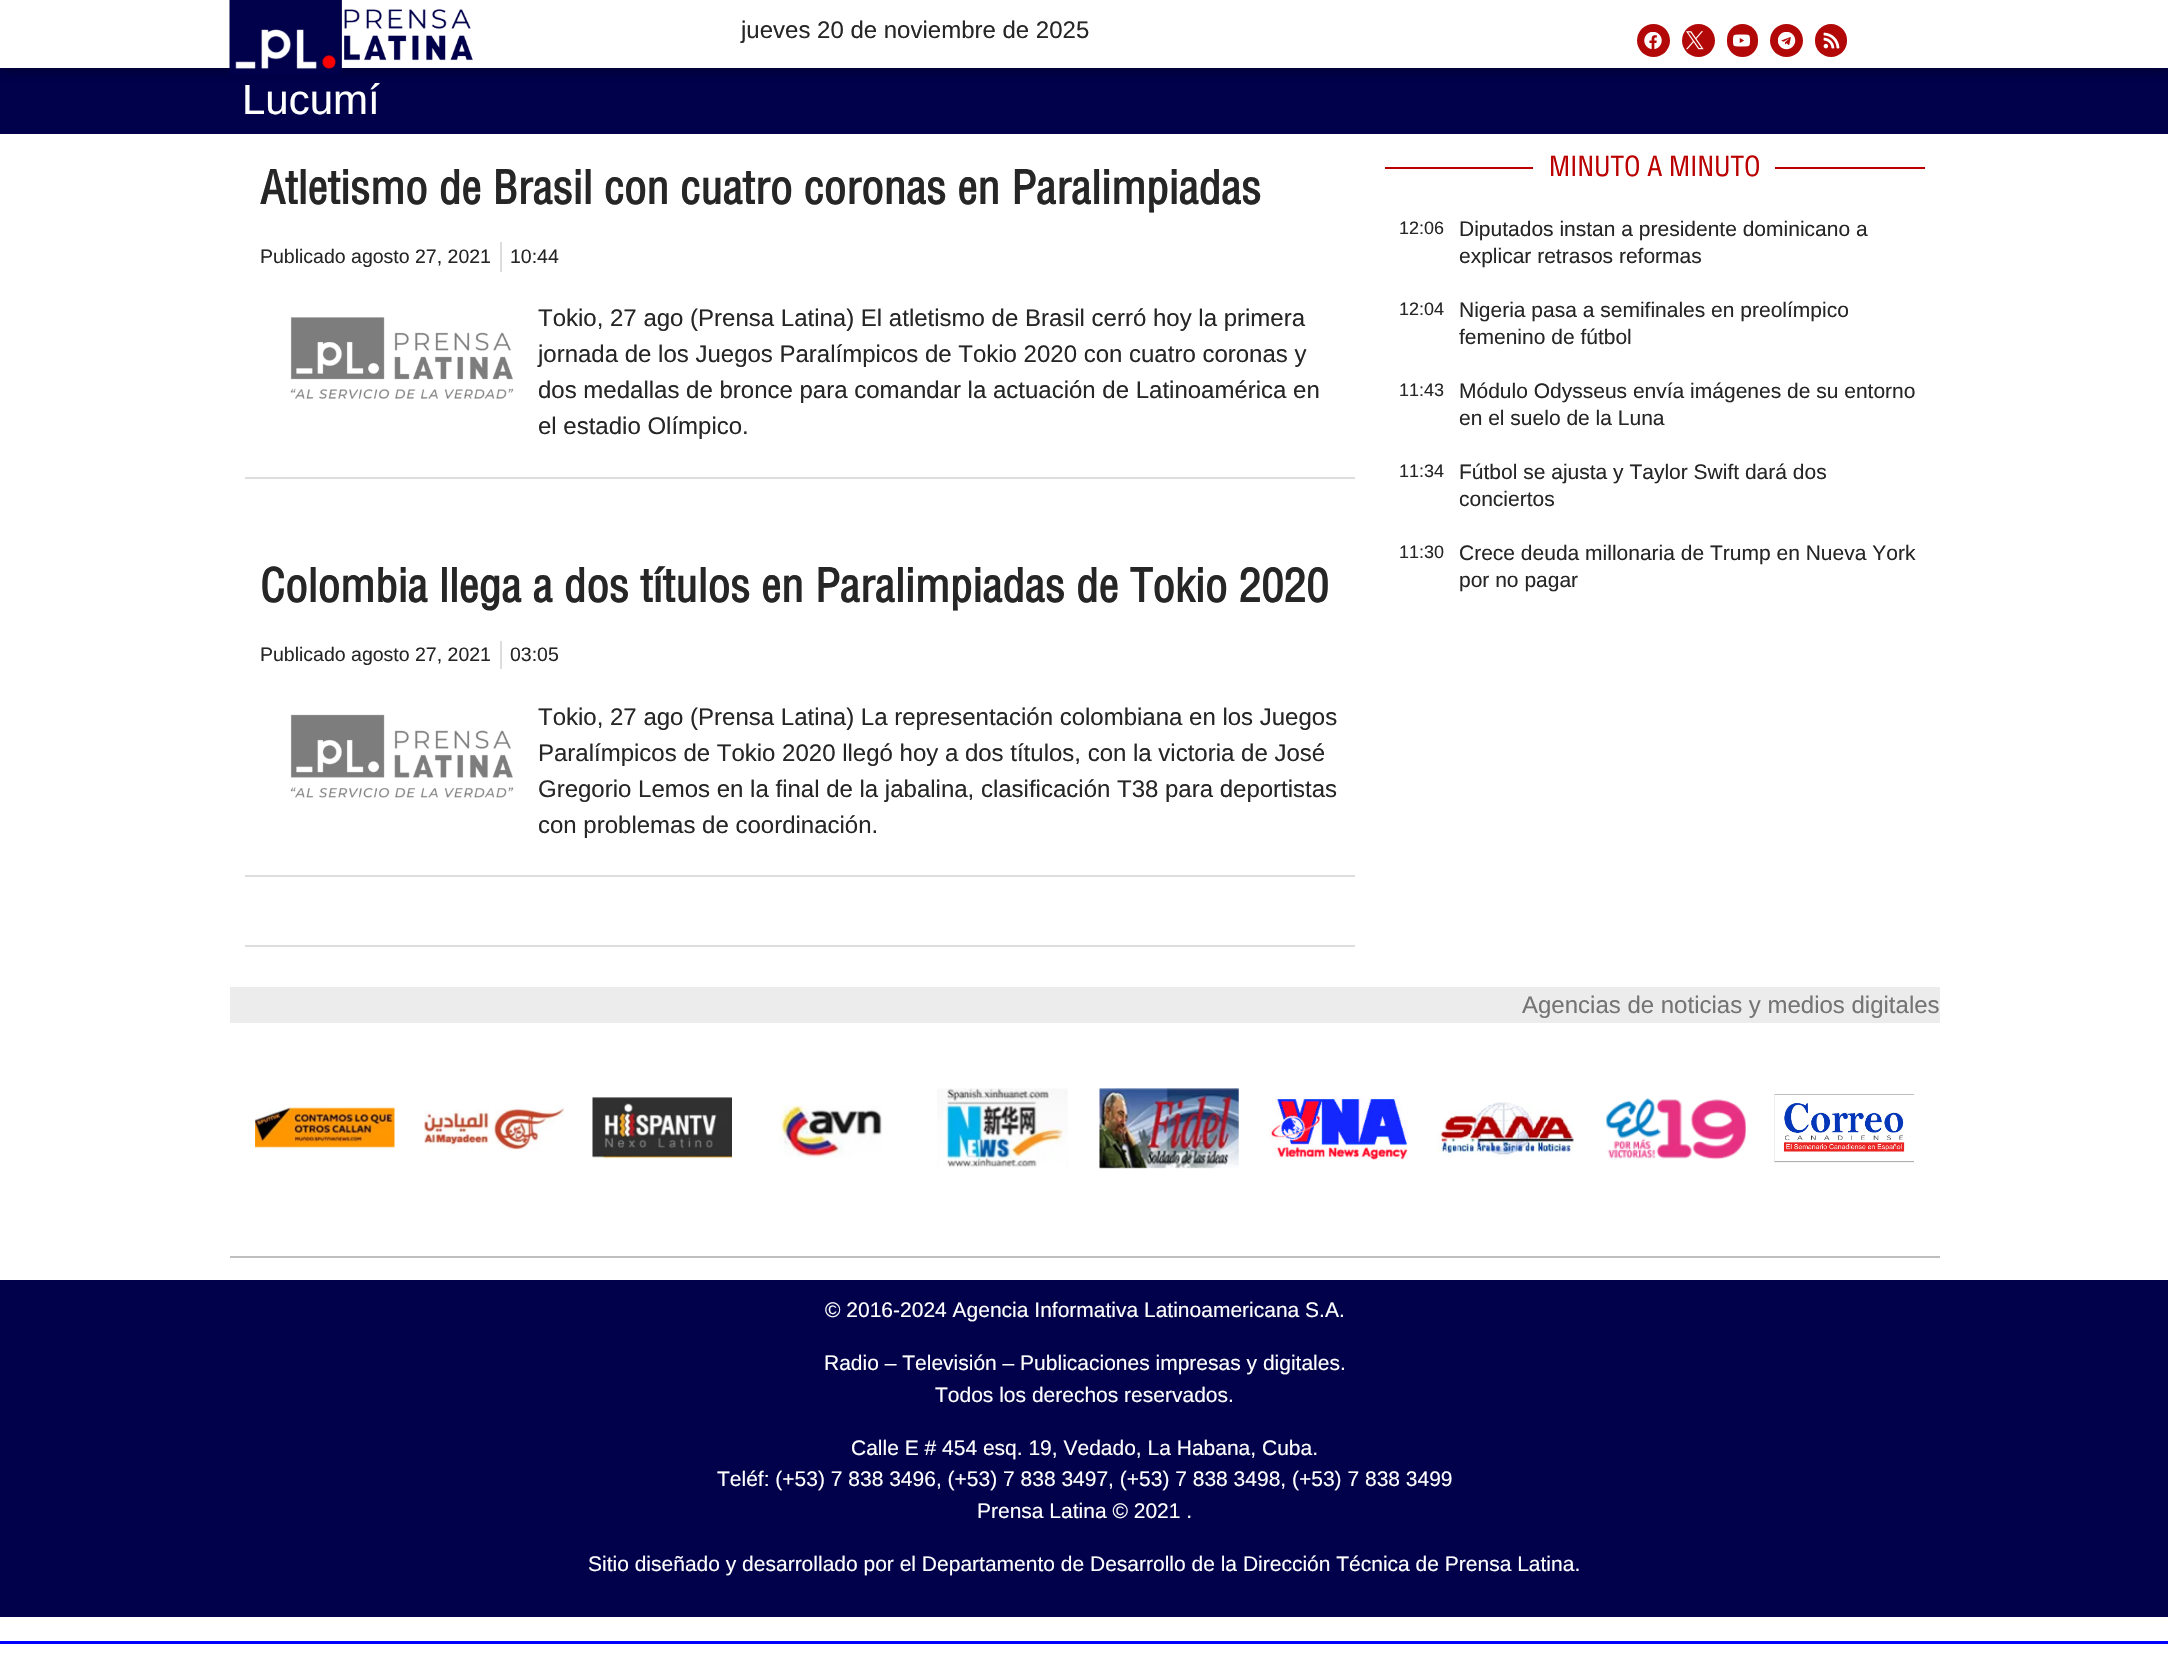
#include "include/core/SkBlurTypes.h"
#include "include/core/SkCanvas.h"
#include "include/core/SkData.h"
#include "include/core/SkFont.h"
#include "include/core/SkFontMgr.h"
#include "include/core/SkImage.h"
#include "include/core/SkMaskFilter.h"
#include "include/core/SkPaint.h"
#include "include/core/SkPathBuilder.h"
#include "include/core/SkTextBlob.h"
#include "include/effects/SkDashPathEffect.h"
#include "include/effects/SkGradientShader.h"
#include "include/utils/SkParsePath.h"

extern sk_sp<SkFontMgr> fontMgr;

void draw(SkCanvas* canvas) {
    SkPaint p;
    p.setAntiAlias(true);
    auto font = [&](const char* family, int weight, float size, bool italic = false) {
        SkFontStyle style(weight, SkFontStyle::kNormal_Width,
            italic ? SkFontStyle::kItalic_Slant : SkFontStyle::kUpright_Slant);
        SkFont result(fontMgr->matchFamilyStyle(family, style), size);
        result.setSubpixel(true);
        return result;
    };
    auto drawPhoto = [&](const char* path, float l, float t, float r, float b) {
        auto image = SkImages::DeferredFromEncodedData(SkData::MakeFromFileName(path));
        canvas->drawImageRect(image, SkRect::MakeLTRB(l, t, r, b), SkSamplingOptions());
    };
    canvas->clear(0xFFFFFFFF);
    p.setColor(0xFF00004B);
    canvas->drawRect(SkRect::MakeLTRB(0, 68, 2168, 134), p);
    p.setColor(0x80000000);
    p.setMaskFilter(SkMaskFilter::MakeBlur(kNormal_SkBlurStyle, 7.5f));
    canvas->drawRect(SkRect::MakeLTRB(0, -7, 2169, 68), p);
    p.setMaskFilter(nullptr);
    p.setColor(0xFFFFFFFF);
    canvas->drawRect(SkRect::MakeLTRB(0, 0, 2168, 68), p);
    drawPhoto("media/1.png", 229, 0, 342, 75);
    drawPhoto("media/2.png", 344, 9, 473, 61);
    auto font1 = font("Liberation Sans", 400, 24);
    p.setColor(0xFF262626);
    canvas->drawString("jueves 20 de noviembre de 2025", 741, 38, font1, p);
    p.setColor(0xFFB30808);
    canvas->drawCircle(1653.5f, 40.5f, 16.5f, p);
    drawPhoto("media/3.png", 1644, 32, 1662, 50);
    canvas->drawCircle(1698.5f, 40.5f, 16.5f, p);
    drawPhoto("media/4.png", 1686, 31, 1704, 50);
    canvas->drawRoundRect(SkRect::MakeLTRB(1727, 24, 1758, 57), 15.5f, 15.5f, p);
    drawPhoto("media/5.png", 1733, 34, 1751, 47);
    canvas->drawCircle(1786.5f, 40.5f, 16.5f, p);
    drawPhoto("media/6.png", 1778, 32, 1796, 50);
    canvas->drawRoundRect(SkRect::MakeLTRB(1815, 24, 1847, 57), 16, 16, p);
    drawPhoto("media/7.png", 1823, 32, 1840, 49);
    auto font2 = font("Liberation Sans", 400, 42);
    p.setColor(0xFFFFFFFF);
    canvas->drawString("Lucumí", 242, 114, font2, p);
    auto font3 = font("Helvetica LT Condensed", 700, 45);
    p.setColor(0xFF262626);
    canvas->drawString("Atletismo de Brasil con cuatro coronas en Paralimpiadas", 260, 204, font3, p);
    auto font4 = font("Liberation Sans", 400, 19.5f);
    canvas->drawString("Publicado agosto 27, 2021", 260, 263, font4, p);
    p.setColor(0xFFDDDDDD);
    canvas->drawRect(SkRect::MakeLTRB(500, 242, 502, 272), p);
    p.setColor(0xFF262626);
    canvas->drawString("10:44", 510, 263, font4, p);
    drawPhoto("media/8.png", 290, 317, 514, 399);
    {
        const struct { const char* s; float x, y; } items[] = {
            {"Tokio, 27 ago (Prensa Latina) El atletismo de Brasil cerró hoy la primera", 538, 326},
            {"jornada de los Juegos Paralímpicos de Tokio 2020 con cuatro coronas y", 538, 362},
            {"dos medallas de bronce para comandar la actuación de Latinoamérica en", 538, 398},
            {"el estadio Olímpico.", 538, 434},
        };
        for (auto [s, x, y] : items) {
            canvas->drawString(s, x, y, font1, p);
        }
    }
    p.setColor(0xFFDDDDDD);
    canvas->drawRect(SkRect::MakeLTRB(245, 477, 1355, 479), p);
    p.setColor(0xFF262626);
    canvas->drawString("Colombia llega a dos títulos en Paralimpiadas de Tokio 2020", 260, 602, font3, p);
    canvas->drawString("Publicado agosto 27, 2021", 260, 661, font4, p);
    p.setColor(0xFFDDDDDD);
    canvas->drawRect(SkRect::MakeLTRB(500, 641, 502, 669), p);
    p.setColor(0xFF262626);
    canvas->drawString("03:05", 510, 661, font4, p);
    drawPhoto("media/9.png", 290, 714, 514, 798);
    {
        const struct { const char* s; float x, y; } items[] = {
            {"Tokio, 27 ago (Prensa Latina) La representación colombiana en los Juegos", 538, 725},
            {"Paralímpicos de Tokio 2020 llegó hoy a dos títulos, con la victoria de José", 538, 761},
            {"Gregorio Lemos en la final de la jabalina, clasificación T38 para deportistas", 538, 797},
            {"con problemas de coordinación.", 538, 833},
        };
        for (auto [s, x, y] : items) {
            canvas->drawString(s, x, y, font1, p);
        }
    }
    {
        const struct { float l, t, r, b; SkColor color; } items[] = {
            {245, 875, 1355, 877, 0xFFDDDDDD},
            {245, 945, 1355, 947, 0xFFDDDDDD},
            {1385, 167, 1533, 169, 0xFFBB0000},
        };
        for (auto [l, t, r, b, color] : items) {
            p.setColor(color);
            canvas->drawRect(SkRect::MakeLTRB(l, t, r, b), p);
        }
    }
    auto font5 = font("Helvetica LT Condensed", 500, 27);
    canvas->drawString("MINUTO A MINUTO", 1549, 176, font5, p);
    canvas->drawRect(SkRect::MakeLTRB(1775, 167, 1925, 169), p);
    auto font6 = font("Liberation Sans", 400, 18);
    p.setColor(0xFF262626);
    canvas->drawString("12:06", 1399, 234, font6, p);
    auto font7 = font("Liberation Sans", 400, 21);
    canvas->drawString("Diputados instan a presidente dominicano a", 1459, 236, font7, p);
    canvas->drawString("explicar retrasos reformas", 1459, 263, font7, p);
    canvas->drawString("12:04", 1399, 315, font6, p);
    canvas->drawString("Nigeria pasa a semifinales en preolímpico", 1459, 317, font7, p);
    canvas->drawString("femenino de fútbol", 1459, 344, font7, p);
    canvas->drawString("11:43", 1399, 396, font6, p);
    canvas->drawString("Módulo Odysseus envía imágenes de su entorno", 1459, 398, font7, p);
    canvas->drawString("en el suelo de la Luna", 1459, 425, font7, p);
    canvas->drawString("11:34", 1399, 477, font6, p);
    canvas->drawString("Fútbol se ajusta y Taylor Swift dará dos", 1459, 479, font7, p);
    canvas->drawString("conciertos", 1459, 506, font7, p);
    canvas->drawString("11:30", 1399, 558, font6, p);
    canvas->drawString("Crece deuda millonaria de Trump en Nueva York", 1459, 560, font7, p);
    canvas->drawString("por no pagar", 1459, 587, font7, p);
    p.setColor(0xFFECECEC);
    canvas->drawRect(SkRect::MakeLTRB(230, 987, 1940, 1023), p);
    p.setColor(0xFF757474);
    canvas->drawString("Agencias de noticias y medios digitales", 1522, 1013, font1, p);
    drawPhoto("media/10.png", 255, 1107, 395, 1148);
    drawPhoto("media/11.png", 424, 1105, 564, 1150);
    drawPhoto("media/12.png", 592, 1097, 732, 1159);
    drawPhoto("media/13.png", 779, 1105, 882, 1158);
    drawPhoto("media/14.png", 937, 1088, 1068, 1168);
    drawPhoto("media/15.png", 1099, 1088, 1239, 1169);
    drawPhoto("media/16.png", 1269, 1096, 1408, 1160);
    drawPhoto("media/17.png", 1437, 1102, 1574, 1157);
    drawPhoto("media/18.png", 1606, 1098, 1746, 1160);
    drawPhoto("media/19.png", 1774, 1094, 1914, 1163);
    p.setColor(0xFFBFBFBF);
    canvas->drawRect(SkRect::MakeLTRB(230, 1256, 1940, 1258), p);
    p.setColor(0xFF00004B);
    canvas->drawRect(SkRect::MakeLTRB(0, 1280, 2168, 1617), p);
    p.setColor(0xFFFFFFFF);
    {
        const struct { const char* s; float x, y; } items[] = {
            {"© 2016-2024 Agencia Informativa Latinoamericana S.A.", 825, 1317},
            {"Radio – Televisión – Publicaciones impresas y digitales.", 824, 1370},
            {"Todos los derechos reservados.", 935, 1402},
            {"Calle E # 454 esq. 19, Vedado, La Habana, Cuba.", 851, 1455},
            {"Teléf: (+53) 7 838 3496, (+53) 7 838 3497, (+53) 7 838 3498, (+53) 7 838 3499", 717, 1486},
            {"Prensa Latina © 2021 .", 977, 1518},
            {"Sitio diseñado y desarrollado por el Departamento de Desarrollo de la Dirección Técnica de Prensa Latina.", 588, 1571},
        };
        for (auto [s, x, y] : items) {
            canvas->drawString(s, x, y, font7, p);
        }
    }
    p.setColor(0xFF0000FF);
    canvas->drawRect(SkRect::MakeLTRB(0, 1641, 2168, 1644), p);
}
